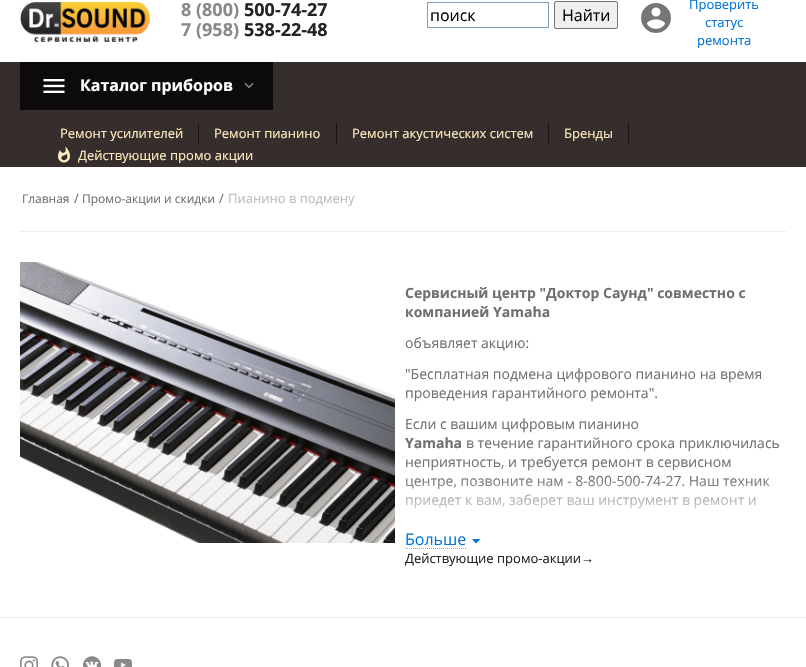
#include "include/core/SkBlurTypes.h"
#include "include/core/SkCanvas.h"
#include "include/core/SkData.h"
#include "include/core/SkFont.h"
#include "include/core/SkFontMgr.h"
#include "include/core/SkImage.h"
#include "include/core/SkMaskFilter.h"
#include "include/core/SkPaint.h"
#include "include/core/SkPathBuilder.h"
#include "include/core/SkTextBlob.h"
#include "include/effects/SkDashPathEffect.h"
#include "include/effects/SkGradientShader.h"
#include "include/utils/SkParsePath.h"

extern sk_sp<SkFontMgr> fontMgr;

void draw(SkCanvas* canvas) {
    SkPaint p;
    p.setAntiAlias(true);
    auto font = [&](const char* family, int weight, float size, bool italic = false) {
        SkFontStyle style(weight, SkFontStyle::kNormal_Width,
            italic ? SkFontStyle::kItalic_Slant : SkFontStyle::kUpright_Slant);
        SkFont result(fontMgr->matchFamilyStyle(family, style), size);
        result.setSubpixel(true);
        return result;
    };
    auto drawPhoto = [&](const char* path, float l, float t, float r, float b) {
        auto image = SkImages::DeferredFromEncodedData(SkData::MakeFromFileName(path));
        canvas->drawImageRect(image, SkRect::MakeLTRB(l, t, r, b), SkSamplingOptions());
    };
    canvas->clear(0xFFFFFFFF);
    drawPhoto("media/1.png", 20, 2, 150, 42);
    auto font1 = font("Open Sans", 700, 18);
    p.setColor(0xFF898989);
    canvas->drawString("8 (800)", 181, 16, font1, p);
    p.setColor(0xFF232323);
    canvas->drawString("500-74-27", 244, 16, font1, p);
    p.setColor(0xFF898989);
    canvas->drawString("7 (958)", 181, 36, font1, p);
    p.setColor(0xFF232323);
    canvas->drawString("538-22-48", 244, 36, font1, p);
    p.setStyle(SkPaint::kStroke_Style);
    p.setStrokeWidth(1);
    p.setColor(0xFF7F9DB9);
    canvas->drawRect(SkRect::MakeLTRB(427.5f, 2.5f, 548.5f, 27.5f), p);
    auto font2 = font("Open Sans", 400, 16);
    p.setStyle(SkPaint::kFill_Style);
    p.setColor(0xFF000000);
    canvas->drawString("поиск", 430, 21, font2, p);
    p.setColor(0xFFEFEFEF);
    canvas->drawRoundRect(SkRect::MakeLTRB(554.5f, 1.5f, 617.5f, 28.5f), 1.5f, 1.5f, p);
    p.setStyle(SkPaint::kStroke_Style);
    p.setColor(0xFF767676);
    canvas->drawRoundRect(SkRect::MakeLTRB(554.5f, 1.5f, 617.5f, 28.5f), 1.5f, 1.5f, p);
    p.setStyle(SkPaint::kFill_Style);
    p.setColor(0xFF000000);
    canvas->drawString("Найти", 562, 21, font2, p);
    drawPhoto("media/2.png", 641, 3, 671, 33);
    auto font3 = font("Open Sans", 400, 13);
    p.setColor(0xFF0275D8);
    {
        const struct { const char* s; float x, y; } items[] = {
            {"Проверить", 689, 9},
            {"статус", 705, 27},
            {"ремонта", 697, 45},
        };
        for (auto [s, x, y] : items) {
            canvas->drawString(s, x, y, font3, p);
        }
    }
    p.setColor(0xFF362E2C);
    canvas->drawRect(SkRect::MakeLTRB(0, 62, 806, 167), p);
    p.setColor(0xFF0C0A0A);
    canvas->drawRect(SkRect::MakeLTRB(20, 62, 273, 110), p);
    drawPhoto("media/3.png", 43, 79, 65, 93);
    auto font4 = font("Open Sans", 700, 16);
    p.setColor(0xFFFFFFFF);
    canvas->drawString("Каталог приборов", 80, 91, font4, p);
    drawPhoto("media/4.png", 244, 83, 254, 89);
    p.setColor(0xFF1A1615);
    canvas->drawRect(SkRect::MakeLTRB(198, 123, 199, 145), p);
    p.setColor(0xFFFDEBC0);
    canvas->drawString("Ремонт усилителей", 60, 138, font3, p);
    p.setColor(0xFF1A1615);
    canvas->drawRect(SkRect::MakeLTRB(336, 123, 337, 145), p);
    p.setColor(0xFFFDEBC0);
    canvas->drawString("Ремонт пианино", 214, 138, font3, p);
    p.setColor(0xFF1A1615);
    canvas->drawRect(SkRect::MakeLTRB(548, 123, 549, 145), p);
    p.setColor(0xFFFDEBC0);
    canvas->drawString("Ремонт акустических систем", 352, 138, font3, p);
    p.setColor(0xFF1A1615);
    canvas->drawRect(SkRect::MakeLTRB(628, 123, 629, 145), p);
    p.setColor(0xFFFDEBC0);
    canvas->drawString("Бренды", 564, 138, font3, p);
    drawPhoto("media/5.png", 58, 146, 70, 163);
    canvas->drawString("Действующие промо акции", 78, 160, font3, p);
    auto font5 = font("Open Sans", 400, 12);
    p.setColor(0xFF707070);
    canvas->drawString("Главная", 22, 203, font5, p);
    canvas->drawString("/", 74, 203, font3, p);
    canvas->drawString("Промо-акции и скидки", 82, 203, font5, p);
    canvas->drawString("/", 219, 203, font3, p);
    p.setColor(0xFFBCBCBC);
    canvas->drawString("Пианино в подмену", 228, 203, font3, p);
    p.setColor(0xFFEDEDED);
    canvas->drawRect(SkRect::MakeLTRB(20, 231, 786, 232), p);
    drawPhoto("media/6.png", 20, 262, 395, 543);
    auto font6 = font("Open Sans", 700, 14);
    p.setColor(0xFF707070);
    canvas->drawString("Сервисный центр \"Доктор Саунд\" совместно с", 405, 298, font6, p);
    canvas->drawString("компанией Yamaha", 405, 317, font6, p);
    auto font7 = font("Open Sans", 400, 14);
    {
        const struct { const char* s; float x, y; } items[] = {
            {"объявляет акцию:", 405, 348},
            {"\"Бесплатная подмена цифрового пианино на время", 405, 379},
            {"проведения гарантийного ремонта\".", 405, 398},
            {"Если с вашим цифровым пианино", 405, 429},
        };
        for (auto [s, x, y] : items) {
            canvas->drawString(s, x, y, font7, p);
        }
    }
    canvas->drawString("Yamaha", 405, 448, font6, p);
    {
        const struct { const char* s; float x, y; } items[] = {
            {"в течение гарантийного срока приключилась", 466, 448},
            {"неприятность, и требуется ремонт в сервисном", 405, 467},
            {"центре, позвоните нам - 8-800-500-74-27. Наш техник", 405, 486},
            {"приедет к вам, заберет ваш инструмент в ремонт и", 405, 505},
        };
        for (auto [s, x, y] : items) {
            canvas->drawString(s, x, y, font7, p);
        }
    }
    {
        const SkColor colors[] = {0x00FFFFFF, 0xFFFFFFFF};
        const float stops[] = {0, 1};
        const SkPoint ends[] = {{593, 477}, {593, 527}};
        p.setShader(SkGradientShader::MakeLinear(ends, colors, stops, 2, SkTileMode::kClamp));
        p.setAlpha(255);
    }
    canvas->drawRect(SkRect::MakeLTRB(406, 478, 770, 509), p);
    p.setStyle(SkPaint::kStroke_Style);
    p.setShader(nullptr);
    p.setColor(0xFF5CB3FD);
    p.setPathEffect(SkDashPathEffect::Make({{1, 1}}, 0));
    canvas->drawPath(SkPathBuilder().moveTo(405, 548.5f).lineTo(467, 548.5f).detach(), p);
    p.setPathEffect(nullptr);
    p.setStyle(SkPaint::kFill_Style);
    p.setColor(0xFF0275D8);
    canvas->drawString("Больше", 405, 545, font2, p);
    canvas->drawPath(SkPathBuilder().moveTo(476, 543.5f).lineTo(472, 539).lineTo(480.5f, 539).close().detach(), p);
    p.setColor(0xFF232323);
    canvas->drawString("Действующие промо-акции", 405, 563, font3, p);
    auto font8 = font("Liberation Sans", 400, 13);
    canvas->drawString("→", 581, 563, font8, p);
    p.setColor(0xFFEDEDED);
    canvas->drawRect(SkRect::MakeLTRB(0, 617, 806, 618), p);
    drawPhoto("media/7.png", 20, 656, 38, 667);
    drawPhoto("media/8.png", 51, 656, 69, 667);
    drawPhoto("media/9.png", 83, 656, 101, 667);
    drawPhoto("media/10.png", 114, 658, 132, 667);
}
